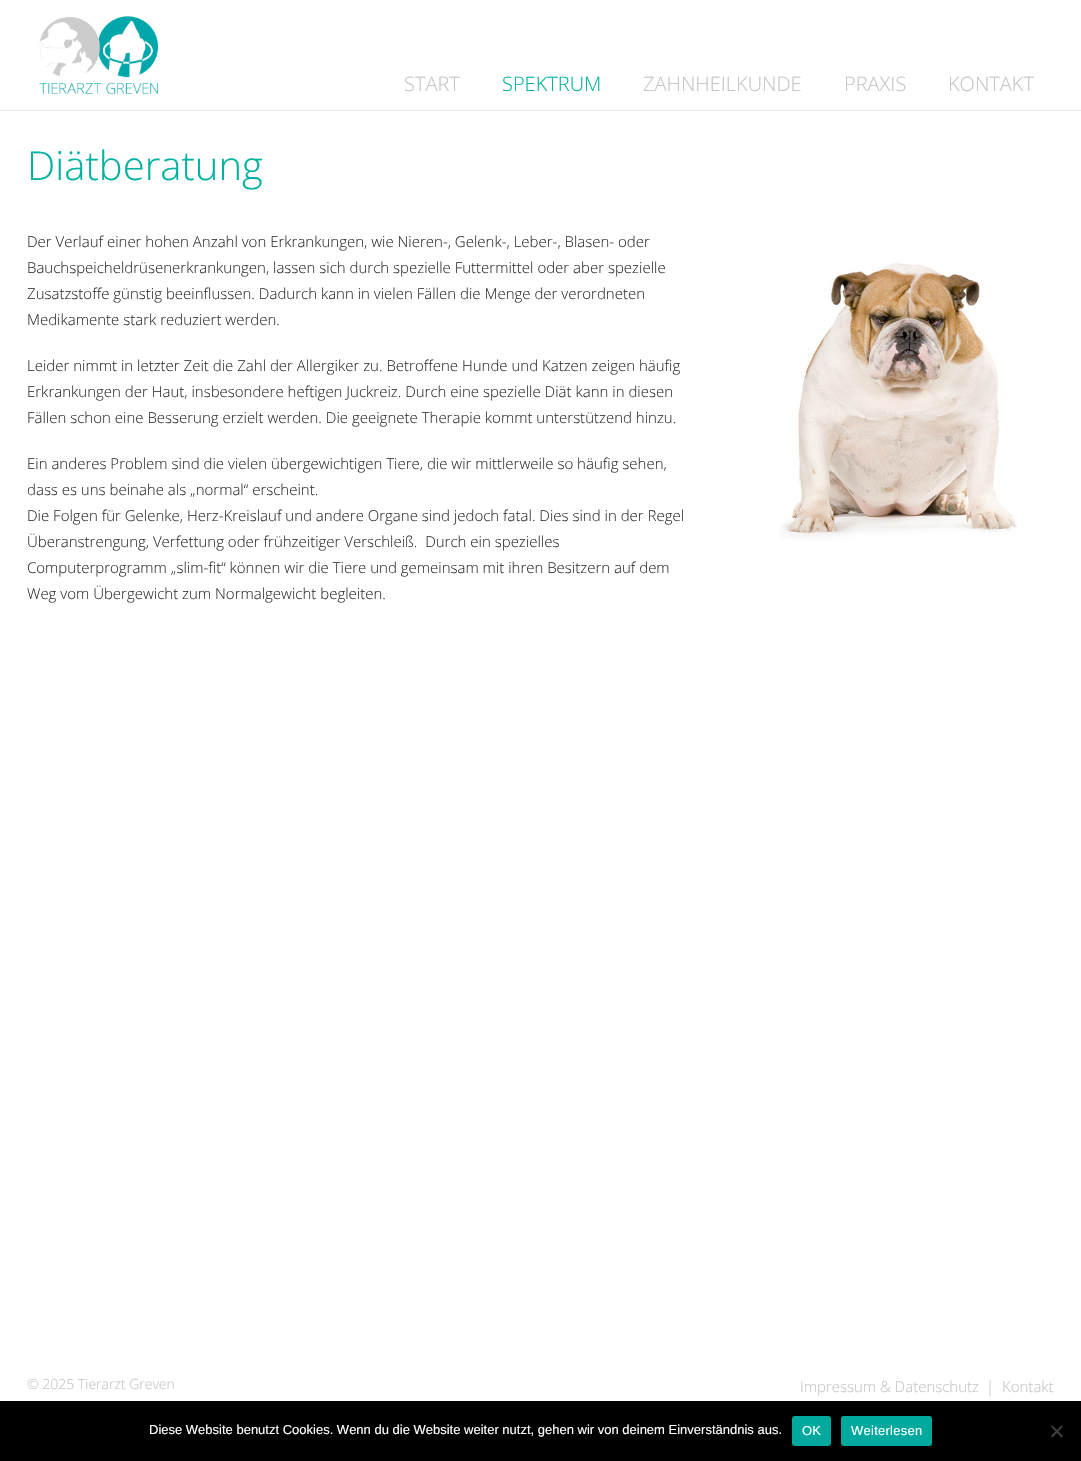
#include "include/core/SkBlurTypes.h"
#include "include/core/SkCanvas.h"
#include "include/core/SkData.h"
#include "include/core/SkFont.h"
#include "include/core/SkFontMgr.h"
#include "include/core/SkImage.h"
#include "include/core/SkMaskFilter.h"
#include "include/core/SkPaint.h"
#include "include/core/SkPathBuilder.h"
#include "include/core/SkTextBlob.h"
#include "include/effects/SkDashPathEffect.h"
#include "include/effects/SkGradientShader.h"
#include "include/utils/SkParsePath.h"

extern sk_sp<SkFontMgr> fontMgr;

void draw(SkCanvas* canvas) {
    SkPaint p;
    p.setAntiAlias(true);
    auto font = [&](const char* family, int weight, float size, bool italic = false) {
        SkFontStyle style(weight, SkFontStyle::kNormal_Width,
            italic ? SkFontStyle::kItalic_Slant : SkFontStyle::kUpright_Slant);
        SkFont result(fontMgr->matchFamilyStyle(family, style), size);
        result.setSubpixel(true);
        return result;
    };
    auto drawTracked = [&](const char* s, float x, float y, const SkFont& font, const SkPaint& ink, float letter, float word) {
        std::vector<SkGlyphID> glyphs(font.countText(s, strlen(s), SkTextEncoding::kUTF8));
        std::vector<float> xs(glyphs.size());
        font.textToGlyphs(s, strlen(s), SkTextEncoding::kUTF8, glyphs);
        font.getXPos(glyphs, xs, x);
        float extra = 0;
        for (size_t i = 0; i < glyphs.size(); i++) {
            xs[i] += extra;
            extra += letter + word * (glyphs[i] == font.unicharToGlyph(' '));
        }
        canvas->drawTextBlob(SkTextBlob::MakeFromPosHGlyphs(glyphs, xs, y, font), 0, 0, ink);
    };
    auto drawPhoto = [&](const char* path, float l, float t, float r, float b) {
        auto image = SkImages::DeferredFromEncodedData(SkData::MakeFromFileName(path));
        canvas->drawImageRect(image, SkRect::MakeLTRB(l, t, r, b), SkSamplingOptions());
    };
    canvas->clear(0xFFFFFFFF);
    p.setColor(0xFFEBEBEB);
    canvas->drawRect(SkRect::MakeLTRB(0, 110, 1081, 111), p);
    drawPhoto("media/1.png", 39, 16, 158, 95);
    auto font1 = font("Open Sans", 300, 20);
    p.setColor(0xFFC6C6C6);
    canvas->drawString("START", 404, 91, font1, p);
    p.setColor(0xFF01B2A0);
    canvas->drawString("SPEKTRUM", 502, 91, font1, p);
    p.setColor(0xFFC6C6C6);
    {
        const struct { const char* s; float x, y; } items[] = {
            {"ZAHNHEILKUNDE", 643, 91},
            {"PRAXIS", 844, 91},
            {"KONTAKT", 948, 91},
        };
        for (auto [s, x, y] : items) {
            canvas->drawString(s, x, y, font1, p);
        }
    }
    auto font2 = font("Open Sans", 300, 40);
    p.setColor(0xFF01B2A0);
    canvas->drawString("Diätberatung", 27, 180, font2, p);
    auto font3 = font("Open Sans", 300, 15);
    p.setColor(0xFF333333);
    {
        const struct { const char* s; float x, y; } items[] = {
            {"Der Verlauf einer hohen Anzahl von Erkrankungen, wie Nieren-, Gelenk-, Leber-, Blasen- oder", 27, 247},
            {"Bauchspeicheldrüsenerkrankungen, lassen sich durch spezielle Futtermittel oder aber spezielle", 27, 273},
            {"Zusatzstoffe günstig beeinflussen. Dadurch kann in vielen Fällen die Menge der verordneten", 27, 299},
            {"Medikamente stark reduziert werden.", 27, 325},
            {"Leider nimmt in letzter Zeit die Zahl der Allergiker zu. Betroffene Hunde und Katzen zeigen häufig", 27, 371},
            {"Erkrankungen der Haut, insbesondere heftigen Juckreiz. Durch eine spezielle Diät kann in diesen", 27, 397},
            {"Fällen schon eine Besserung erzielt werden. Die geeignete Therapie kommt unterstützend hinzu.", 27, 423},
            {"Ein anderes Problem sind die vielen übergewichtigen Tiere, die wir mittlerweile so häufig sehen,", 27, 469},
            {"dass es uns beinahe als „normal“ erscheint.", 27, 495},
            {"Die Folgen für Gelenke, Herz-Kreislauf und andere Organe sind jedoch fatal. Dies sind in der Regel", 27, 521},
            {"Überanstrengung, Verfettung oder frühzeitiger Verschleiß.  Durch ein spezielles", 27, 547},
            {"Computerprogramm „slim-fit“ können wir die Tiere und gemeinsam mit ihren Besitzern auf dem", 27, 573},
            {"Weg vom Übergewicht zum Normalgewicht begleiten.", 27, 599},
        };
        for (auto [s, x, y] : items) {
            canvas->drawString(s, x, y, font3, p);
        }
    }
    drawPhoto("media/2.png", 779, 263, 1018, 540);
    auto font4 = font("Open Sans", 300, 14);
    p.setColor(0xFFC6C6C6);
    canvas->drawString("© 2025 Tierarzt Greven", 27, 1389, font4, p);
    {
        const struct { const char* s; float x, y; } items[] = {
            {"Impressum & Datenschutz", 800, 1392},
            {"|", 986, 1392},
            {"Kontakt", 1002, 1392},
        };
        for (auto [s, x, y] : items) {
            canvas->drawString(s, x, y, font3, p);
        }
    }
    p.setColor(0xFF000000);
    canvas->drawRect(SkRect::MakeLTRB(0, 1401, 1081, 1461), p);
    auto font5 = font("Liberation Sans", 400, 13);
    p.setColor(0xFFFFFFFF);
    canvas->drawString("Diese Website benutzt Cookies. Wenn du die Website weiter nutzt, gehen wir von deinem Einverständnis aus.", 149, 1434, font5, p);
    p.setColor(0xFF00A99D);
    canvas->drawRoundRect(SkRect::MakeLTRB(792, 1416, 831, 1446), 3, 3, p);
    p.setColor(0xFFFFFFFF);
    drawTracked("OK", 802, 1435, font5, p, 0.25f, 0);
    p.setColor(0xFF00A99D);
    canvas->drawRoundRect(SkRect::MakeLTRB(841, 1416, 932, 1446), 3, 3, p);
    p.setColor(0xFFFFFFFF);
    drawTracked("Weiterlesen", 851, 1435, font5, p, 0.25f, 0);
    p.setColor(0xFF404040);
    canvas->drawPath(SkPathBuilder().moveTo(1061.5f, 1425.5f).lineTo(1063, 1426.5f).lineTo(1052.5f, 1437.5f).lineTo(1051, 1436).close().detach(), p);
    canvas->drawPath(SkPathBuilder().moveTo(1051, 1426.5f).lineTo(1052.5f, 1425.5f).lineTo(1063, 1436).lineTo(1061.5f, 1437.5f).close().detach(), p);
}
